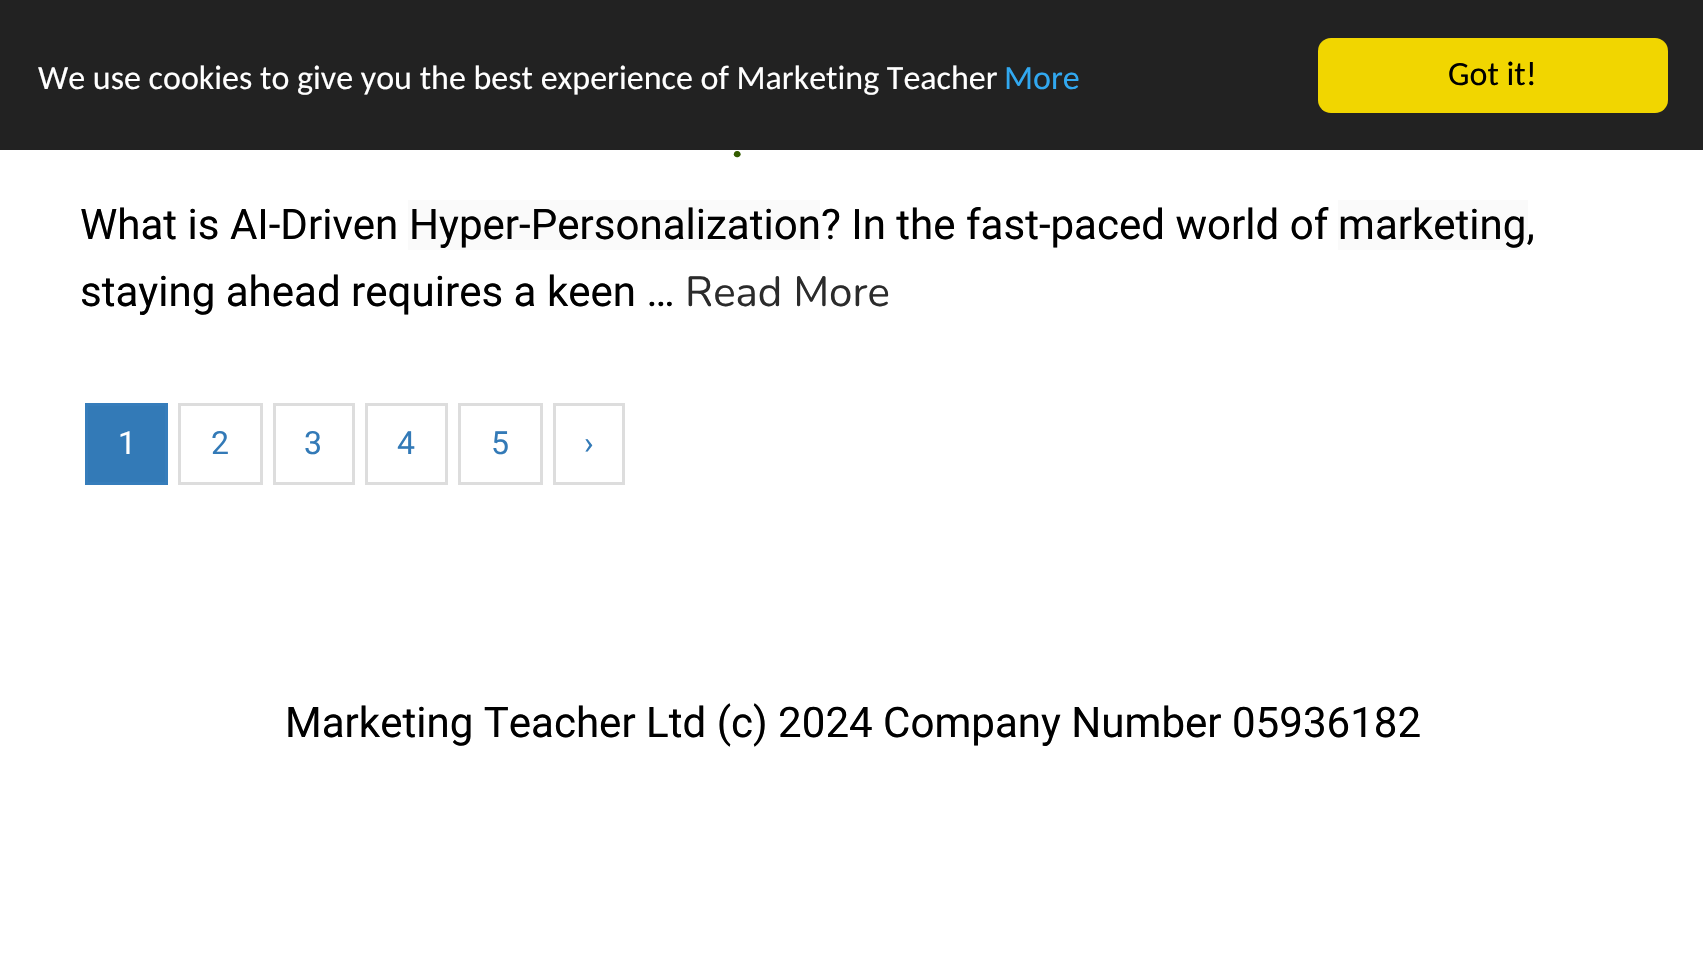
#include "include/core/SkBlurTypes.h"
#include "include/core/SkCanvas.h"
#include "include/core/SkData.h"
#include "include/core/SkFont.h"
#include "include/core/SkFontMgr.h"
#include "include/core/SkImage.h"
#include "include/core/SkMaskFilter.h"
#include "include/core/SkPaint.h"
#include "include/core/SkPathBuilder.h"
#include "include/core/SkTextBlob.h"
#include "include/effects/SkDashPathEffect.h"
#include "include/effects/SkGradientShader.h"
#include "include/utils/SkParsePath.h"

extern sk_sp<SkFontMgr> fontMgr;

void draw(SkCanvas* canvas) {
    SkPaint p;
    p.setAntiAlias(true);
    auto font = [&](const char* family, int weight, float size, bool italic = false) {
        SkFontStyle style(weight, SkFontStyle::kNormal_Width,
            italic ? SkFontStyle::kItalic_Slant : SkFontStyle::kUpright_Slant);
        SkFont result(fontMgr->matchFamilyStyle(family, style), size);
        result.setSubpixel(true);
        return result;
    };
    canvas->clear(0xFFFFFFFF);
    p.setColor(0xFF222222);
    canvas->drawRect(SkRect::MakeLTRB(0, 0, 1703, 150), p);
    auto font1 = font("Carlito", 400, 34);
    p.setColor(0xFFFFFFFF);
    canvas->drawString("We use cookies to give you the best experience of Marketing Teacher", 38, 89, font1, p);
    p.setColor(0xFF31A8F0);
    canvas->drawString("More", 1004, 89, font1, p);
    p.setColor(0xFFF1D600);
    canvas->drawRoundRect(SkRect::MakeLTRB(1318, 38, 1668, 113), 13, 13, p);
    p.setColor(0xFF000000);
    canvas->drawString("Got it!", 1448, 85, font1, p);
    auto font2 = font("Roboto", 600, 45);
    p.setColor(0xFF345C00);
    canvas->drawString(".", 731, 157, font2, p);
    auto font3 = font("Roboto", 400, 42.05f);
    p.setColor(0xFF000000);
    canvas->drawString("What is AI-Driven", 80, 239, font3, p);
    p.setColor(0xFFFAFAFA);
    canvas->drawRect(SkRect::MakeLTRB(408, 200, 820, 250), p);
    p.setColor(0xFF000000);
    canvas->drawString("Hyper-Personalization? In the fast-paced world of", 409, 239, font3, p);
    p.setColor(0xFFFAFAFA);
    canvas->drawRect(SkRect::MakeLTRB(1338, 200, 1528, 250), p);
    p.setColor(0xFF000000);
    canvas->drawString("marketing,", 1338, 239, font3, p);
    canvas->drawString("staying ahead requires a keen …", 80, 306, font3, p);
    auto font4 = font("Nunito", 200, 42.05f);
    p.setColor(0xFF2B2B2B);
    canvas->drawString("Read More", 685, 306, font4, p);
    p.setColor(0xFF337AB7);
    canvas->drawRect(SkRect::MakeLTRB(86.5f, 404.5f, 166.5f, 483.5f), p);
    p.setStyle(SkPaint::kStroke_Style);
    p.setStrokeWidth(3);
    p.setColor(0xFF367DBB);
    canvas->drawRect(SkRect::MakeLTRB(86.5f, 404.5f, 166.5f, 483.5f), p);
    auto font5 = font("Roboto", 400, 32);
    p.setStyle(SkPaint::kFill_Style);
    p.setColor(0xFFFFFFFF);
    canvas->drawString("1", 118, 454, font5, p);
    p.setStyle(SkPaint::kStroke_Style);
    p.setColor(0xFFDDDDDD);
    canvas->drawRect(SkRect::MakeLTRB(179.5f, 404.5f, 261.5f, 483.5f), p);
    p.setStyle(SkPaint::kFill_Style);
    p.setColor(0xFF337AB7);
    canvas->drawString("2", 211, 454, font5, p);
    p.setStyle(SkPaint::kStroke_Style);
    p.setColor(0xFFDDDDDD);
    canvas->drawRect(SkRect::MakeLTRB(274.5f, 404.5f, 353.5f, 483.5f), p);
    p.setStyle(SkPaint::kFill_Style);
    p.setColor(0xFF337AB7);
    canvas->drawString("3", 304, 454, font5, p);
    p.setStyle(SkPaint::kStroke_Style);
    p.setColor(0xFFDDDDDD);
    canvas->drawRect(SkRect::MakeLTRB(366.5f, 404.5f, 446.5f, 483.5f), p);
    p.setStyle(SkPaint::kFill_Style);
    p.setColor(0xFF337AB7);
    canvas->drawString("4", 397, 454, font5, p);
    p.setStyle(SkPaint::kStroke_Style);
    p.setColor(0xFFDDDDDD);
    canvas->drawRect(SkRect::MakeLTRB(459.5f, 404.5f, 541.5f, 483.5f), p);
    p.setStyle(SkPaint::kFill_Style);
    p.setColor(0xFF337AB7);
    canvas->drawString("5", 491, 454, font5, p);
    p.setStyle(SkPaint::kStroke_Style);
    p.setColor(0xFFDDDDDD);
    canvas->drawRect(SkRect::MakeLTRB(554.5f, 404.5f, 623.5f, 483.5f), p);
    p.setStyle(SkPaint::kFill_Style);
    p.setColor(0xFF337AB7);
    canvas->drawString("›", 584, 454, font5, p);
    p.setColor(0xFF000000);
    canvas->drawString("Marketing Teacher Ltd (c) 2024 Company Number 05936182", 285, 737, font3, p);
}
